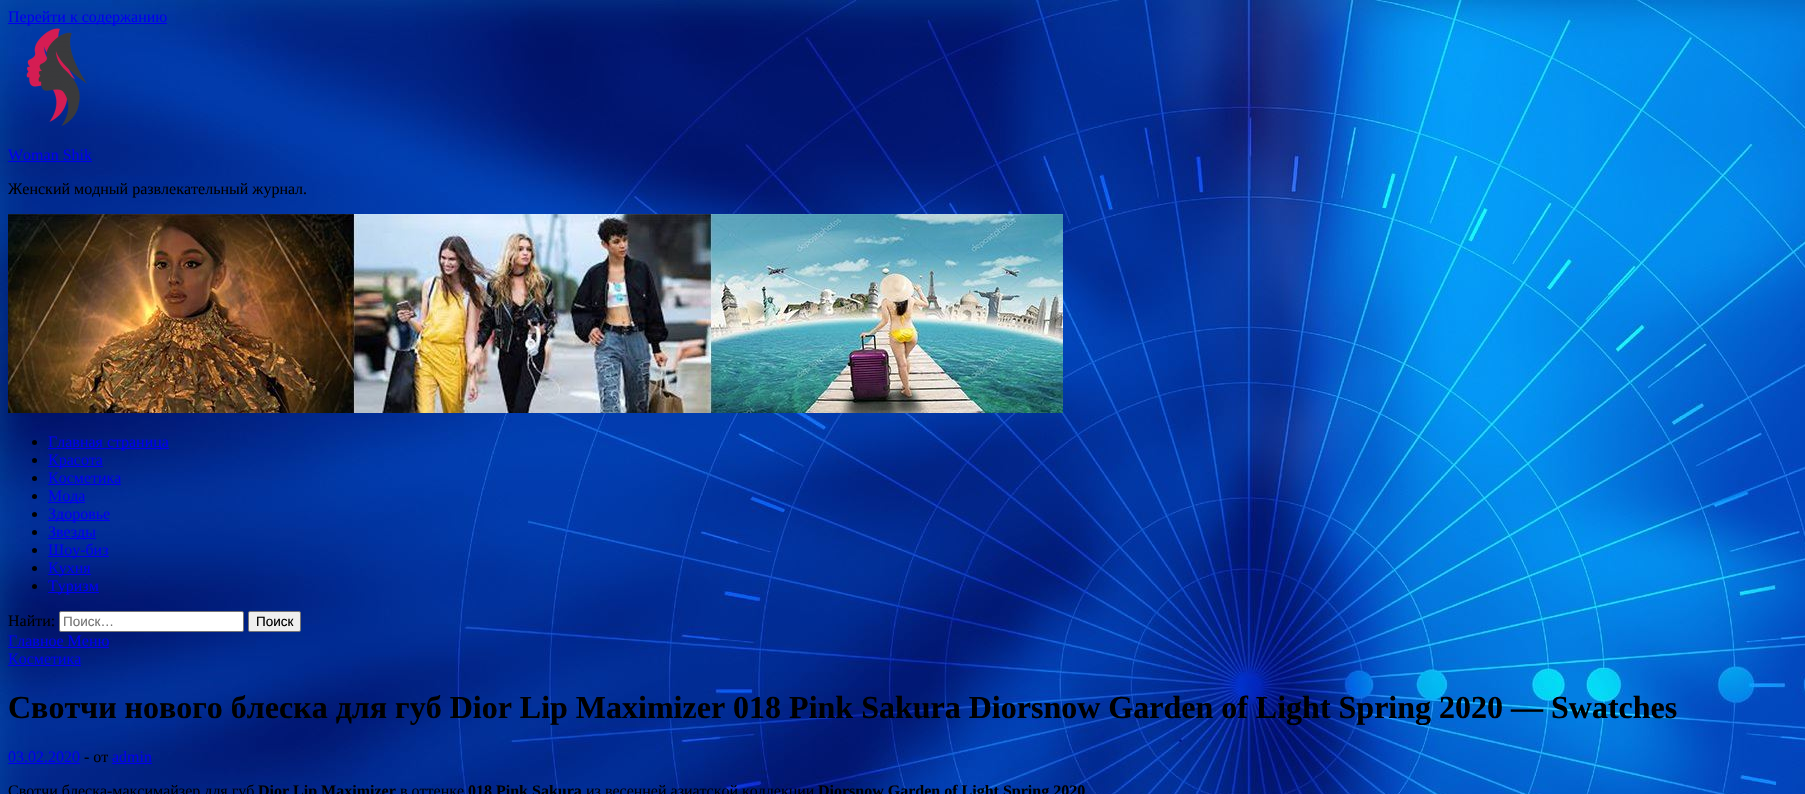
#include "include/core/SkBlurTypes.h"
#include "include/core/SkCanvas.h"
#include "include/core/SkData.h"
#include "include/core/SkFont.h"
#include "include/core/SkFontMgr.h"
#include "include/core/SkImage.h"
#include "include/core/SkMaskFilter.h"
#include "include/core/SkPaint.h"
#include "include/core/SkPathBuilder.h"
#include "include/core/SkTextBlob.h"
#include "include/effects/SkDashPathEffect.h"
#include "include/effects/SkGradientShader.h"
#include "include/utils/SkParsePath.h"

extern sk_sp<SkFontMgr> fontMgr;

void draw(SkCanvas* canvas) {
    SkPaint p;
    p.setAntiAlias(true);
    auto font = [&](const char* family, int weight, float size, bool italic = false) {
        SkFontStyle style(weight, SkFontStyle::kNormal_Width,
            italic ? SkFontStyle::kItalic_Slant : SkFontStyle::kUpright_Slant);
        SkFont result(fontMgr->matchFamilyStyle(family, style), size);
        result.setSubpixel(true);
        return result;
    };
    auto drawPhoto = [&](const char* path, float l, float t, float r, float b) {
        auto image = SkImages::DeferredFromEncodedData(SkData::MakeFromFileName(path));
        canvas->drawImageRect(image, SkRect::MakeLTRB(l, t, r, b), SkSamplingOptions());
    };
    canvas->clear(0xFFFFFFFF);
    drawPhoto("media/1.png", 0, 0, 1805, 794);
    p.setColor(0xFF0000EE);
    canvas->drawRect(SkRect::MakeLTRB(8, 23, 167, 24), p);
    auto font1 = font("Liberation Serif", 400, 16);
    canvas->drawString("Перейти к содержанию", 8, 22, font1, p);
    drawPhoto("media/2.png", 26, 28, 87, 126);
    canvas->drawString("Woman Shik", 8, 160, font1, p);
    canvas->drawRect(SkRect::MakeLTRB(8, 161, 92, 162), p);
    p.setColor(0xFF000000);
    canvas->drawString("Женский модный развлекательный журнал.", 8, 194, font1, p);
    drawPhoto("media/3.png", 8, 214, 1063, 413);
    canvas->drawCircle(34.5f, 442.5f, 2.5f, p);
    p.setColor(0xFF0000EE);
    canvas->drawRect(SkRect::MakeLTRB(48, 448, 169, 449), p);
    canvas->drawString("Главная страница", 48, 447, font1, p);
    p.setColor(0xFF000000);
    canvas->drawCircle(34.5f, 460.5f, 2.5f, p);
    p.setColor(0xFF0000EE);
    canvas->drawRect(SkRect::MakeLTRB(48, 466, 103, 467), p);
    canvas->drawString("Красота", 48, 465, font1, p);
    p.setColor(0xFF000000);
    canvas->drawCircle(34.5f, 478.5f, 2.5f, p);
    p.setColor(0xFF0000EE);
    canvas->drawString("Косметика", 48, 483, font1, p);
    canvas->drawRect(SkRect::MakeLTRB(48, 484, 121, 485), p);
    p.setColor(0xFF000000);
    canvas->drawCircle(34.5f, 496.5f, 2.5f, p);
    p.setColor(0xFF0000EE);
    canvas->drawRect(SkRect::MakeLTRB(48, 502, 85, 503), p);
    canvas->drawString("Мода", 48, 501, font1, p);
    p.setColor(0xFF000000);
    canvas->drawCircle(34.5f, 514.5f, 2.5f, p);
    p.setColor(0xFF0000EE);
    canvas->drawRect(SkRect::MakeLTRB(48, 520, 110, 521), p);
    canvas->drawString("Здоровье", 48, 519, font1, p);
    p.setColor(0xFF000000);
    canvas->drawCircle(34.5f, 532.5f, 2.5f, p);
    p.setColor(0xFF0000EE);
    canvas->drawRect(SkRect::MakeLTRB(48, 538, 96, 539), p);
    canvas->drawString("Звезды", 48, 537, font1, p);
    p.setColor(0xFF000000);
    canvas->drawCircle(34.5f, 550.5f, 2.5f, p);
    p.setColor(0xFF0000EE);
    canvas->drawRect(SkRect::MakeLTRB(48, 556, 109, 557), p);
    canvas->drawString("Шоу-биз", 48, 555, font1, p);
    p.setColor(0xFF000000);
    canvas->drawCircle(34.5f, 568.5f, 2.5f, p);
    p.setColor(0xFF0000EE);
    canvas->drawRect(SkRect::MakeLTRB(48, 574, 91, 575), p);
    canvas->drawString("Кухня", 48, 573, font1, p);
    p.setColor(0xFF000000);
    canvas->drawCircle(34.5f, 586.5f, 2.5f, p);
    p.setColor(0xFF0000EE);
    canvas->drawRect(SkRect::MakeLTRB(48, 592, 99, 593), p);
    canvas->drawString("Туризм", 48, 591, font1, p);
    p.setColor(0xFF000000);
    canvas->drawString("Найти:", 8, 626, font1, p);
    p.setColor(0xFFFFFFFF);
    canvas->drawRoundRect(SkRect::MakeLTRB(59.5f, 611.5f, 243.5f, 631.5f), 1.5f, 1.5f, p);
    p.setStyle(SkPaint::kStroke_Style);
    p.setStrokeWidth(1);
    p.setColor(0xFF767676);
    canvas->drawRoundRect(SkRect::MakeLTRB(59.5f, 611.5f, 243.5f, 631.5f), 1.5f, 1.5f, p);
    auto font2 = font("Liberation Sans", 400, 13.5f);
    p.setStyle(SkPaint::kFill_Style);
    p.setColor(0xFF757575);
    canvas->drawString("Поиск…", 63, 626, font2, p);
    p.setColor(0xFFEFEFEF);
    canvas->drawRoundRect(SkRect::MakeLTRB(248.5f, 611.5f, 300.5f, 631.5f), 1.5f, 1.5f, p);
    p.setStyle(SkPaint::kStroke_Style);
    p.setColor(0xFF767676);
    canvas->drawRoundRect(SkRect::MakeLTRB(248.5f, 611.5f, 300.5f, 631.5f), 1.5f, 1.5f, p);
    p.setStyle(SkPaint::kFill_Style);
    p.setColor(0xFF000000);
    canvas->drawString("Поиск", 256, 626, font2, p);
    p.setColor(0xFF0000EE);
    canvas->drawString("Главное Меню", 8, 646, font1, p);
    canvas->drawRect(SkRect::MakeLTRB(8, 647, 109, 648), p);
    canvas->drawString("Косметика", 8, 664, font1, p);
    canvas->drawRect(SkRect::MakeLTRB(8, 665, 81, 666), p);
    auto font3 = font("Liberation Serif", 700, 32);
    p.setColor(0xFF000000);
    canvas->drawString("Свотчи нового блеска для губ Dior Lip Maximizer 018 Pink Sakura Diorsnow Garden of Light Spring 2020 — Swatches", 8, 718, font3, p);
    p.setColor(0xFF0000EE);
    canvas->drawString("03.02.2020", 8, 762, font1, p);
    canvas->drawRect(SkRect::MakeLTRB(8, 763, 80, 764), p);
    p.setColor(0xFF000000);
    canvas->drawString("- от", 84, 762, font1, p);
    p.setColor(0xFF0000EE);
    canvas->drawString("admin", 112, 762, font1, p);
    canvas->drawRect(SkRect::MakeLTRB(112, 763, 152, 764), p);
    p.setColor(0xFF000000);
    canvas->drawString("Свотчи блеска-максимайзер для губ", 8, 796, font1, p);
    auto font4 = font("Liberation Serif", 700, 16);
    canvas->drawString("Dior Lip Maximizer", 258, 796, font4, p);
    canvas->drawString("в оттенке", 400, 796, font1, p);
    canvas->drawString("018 Pink Sakura", 468, 796, font4, p);
    canvas->drawString("из весенней азиатской коллекции", 586, 796, font1, p);
    canvas->drawString("Diorsnow Garden of Light Spring 2020", 818, 796, font4, p);
}
